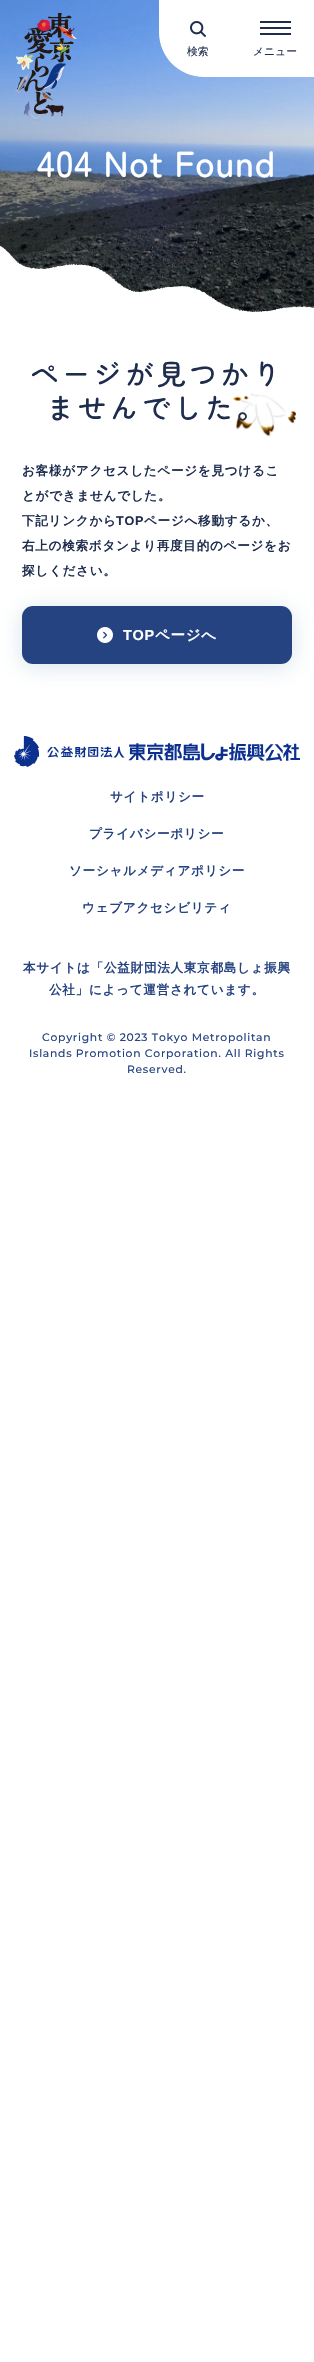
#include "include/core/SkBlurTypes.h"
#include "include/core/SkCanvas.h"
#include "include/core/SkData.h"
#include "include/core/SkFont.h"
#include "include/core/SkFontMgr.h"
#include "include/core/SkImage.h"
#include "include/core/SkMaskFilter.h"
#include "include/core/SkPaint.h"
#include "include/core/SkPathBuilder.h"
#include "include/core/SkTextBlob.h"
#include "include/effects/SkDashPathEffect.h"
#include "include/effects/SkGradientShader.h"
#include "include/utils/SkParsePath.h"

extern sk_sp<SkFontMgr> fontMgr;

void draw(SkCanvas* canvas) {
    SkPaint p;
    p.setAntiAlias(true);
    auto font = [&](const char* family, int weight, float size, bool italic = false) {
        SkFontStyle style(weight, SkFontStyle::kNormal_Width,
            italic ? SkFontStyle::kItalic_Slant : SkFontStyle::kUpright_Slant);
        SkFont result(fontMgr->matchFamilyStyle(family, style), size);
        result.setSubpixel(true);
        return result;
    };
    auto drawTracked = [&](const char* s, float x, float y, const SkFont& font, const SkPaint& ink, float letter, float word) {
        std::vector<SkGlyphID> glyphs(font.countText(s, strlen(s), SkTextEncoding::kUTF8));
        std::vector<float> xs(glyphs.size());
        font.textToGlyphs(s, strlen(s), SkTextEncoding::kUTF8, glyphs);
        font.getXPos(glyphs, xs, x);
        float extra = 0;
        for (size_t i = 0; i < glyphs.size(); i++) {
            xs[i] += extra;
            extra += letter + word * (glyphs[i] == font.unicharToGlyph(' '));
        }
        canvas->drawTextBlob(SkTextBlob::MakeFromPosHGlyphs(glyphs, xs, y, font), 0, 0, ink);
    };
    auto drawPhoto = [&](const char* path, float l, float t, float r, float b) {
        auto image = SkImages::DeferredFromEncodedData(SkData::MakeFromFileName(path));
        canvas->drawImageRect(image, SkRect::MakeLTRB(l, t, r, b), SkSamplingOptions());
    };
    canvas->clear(0xFFFFFFFF);
    drawPhoto("media/3.png", 0, 0, 314, 313);
    drawPhoto("media/1.png", 14, 13, 77, 121);
    p.setColor(0xFFFFFFFF);
    canvas->drawPath(SkPathBuilder().moveTo(159, 0).lineTo(237, 0).lineTo(237, 77).lineTo(204, 77).cubicTo(179, 77, 159, 57, 159, 32).close().detach(), p);
    drawPhoto("media/2.png", 190, 21, 206, 37);
    auto font1 = font("WenQuanYi Zen Hei", 500, 10.8f);
    p.setColor(0xFF1E2D4E);
    canvas->drawString("検索", 187, 55, font1, p);
    {
        const struct { float l, t, r, b; SkColor color; } items[] = {
            {237, 0, 314, 77, 0xFFFFFFFF},
            {260, 21, 291, 23, 0xFF1E2D4E},
            {260, 27, 291, 29, 0xFF1E2D4E},
            {260, 33, 291, 35, 0xFF1E2D4E},
        };
        for (auto [l, t, r, b, color] : items) {
            p.setColor(color);
            canvas->drawRect(SkRect::MakeLTRB(l, t, r, b), p);
        }
    }
    canvas->drawString("メニュー", 253, 55, font1, p);
    auto font2 = font("Zen Maru Gothic", 500, 36);
    p.setColor(0xFFFFFFFF);
    drawTracked("404 Not Found", 37, 177, font2, p, 0.7f, 0);
    drawPhoto("media/4.png", 0, 246, 314, 324);
    drawPhoto("media/5.png", 233, 393, 296, 437);
    auto font3 = font("Zen Maru Gothic", 500, 28.75f);
    p.setColor(0xFF1E2D4E);
    drawTracked("ページが見つかり", 30, 385, font3, p, 3, 0);
    drawTracked("ませんでした。", 46, 419, font3, p, 3, 0);
    auto font4 = font("WenQuanYi Zen Hei", 700, 12.6f);
    {
        const struct { const char* s; float x, y; } items[] = {
            {"お客様がアクセスしたページを見つけるこ", 22, 475},
            {"とができませんでした。", 22, 500},
            {"下記リンクから", 22, 525},
        };
        for (auto [s, x, y] : items) {
            drawTracked(s, x, y, font4, p, 0.7f, 0);
        }
    }
    auto font5 = font("Liberation Sans", 700, 12.6f);
    drawTracked("TOP", 116, 525, font5, p, 0.7f, 0);
    {
        const struct { const char* s; float x, y; } items[] = {
            {"ページへ移動するか、", 144, 525},
            {"右上の検索ボタンより再度目的のページをお", 22, 550},
            {"探しください。", 22, 575},
        };
        for (auto [s, x, y] : items) {
            drawTracked(s, x, y, font4, p, 0.7f, 0);
        }
    }
    p.setColor(0x4D7BA4BA);
    p.setMaskFilter(SkMaskFilter::MakeBlur(kNormal_SkBlurStyle, 11));
    canvas->drawRoundRect(SkRect::MakeLTRB(22, 609, 292, 667), 11, 11, p);
    p.setMaskFilter(nullptr);
    p.setColor(0xFF264381);
    canvas->drawRoundRect(SkRect::MakeLTRB(22, 606, 292, 664), 11, 11, p);
    drawPhoto("media/6.png", 97, 627, 113, 643);
    auto font6 = font("Liberation Sans", 700, 14.5f);
    p.setColor(0xFFFFFFFF);
    drawTracked("TOP", 123, 640, font6, p, 0.7f, 0);
    auto font7 = font("WenQuanYi Zen Hei", 700, 14.5f);
    drawTracked("ページへ", 155, 640, font7, p, 0.7f, 0);
    drawPhoto("media/7.png", 14, 736, 300, 767);
    p.setColor(0xFF264381);
    {
        const struct { const char* s; float x, y; } items[] = {
            {"サイトポリシー", 110, 801},
            {"プライバシーポリシー", 89, 838},
            {"ソーシャルメディアポリシー", 69, 875},
            {"ウェブアクセシビリティ", 82, 912},
            {"本サイトは「公益財団法人東京都島しょ振興", 23, 972},
            {"公社」によって運営されています。", 49, 994},
        };
        for (auto [s, x, y] : items) {
            drawTracked(s, x, y, font4, p, 0.7f, 0);
        }
    }
    auto font8 = font("Montserrat", 100, 10.8f);
    {
        const struct { const char* s; float x, y; } items[] = {
            {"Copyright © 2023 Tokyo Metropolitan", 42, 1041},
            {"Islands Promotion Corporation. All Rights", 29, 1057},
            {"Reserved.", 127, 1073},
        };
        for (auto [s, x, y] : items) {
            drawTracked(s, x, y, font8, p, 0.7f, 0);
        }
    }
}
